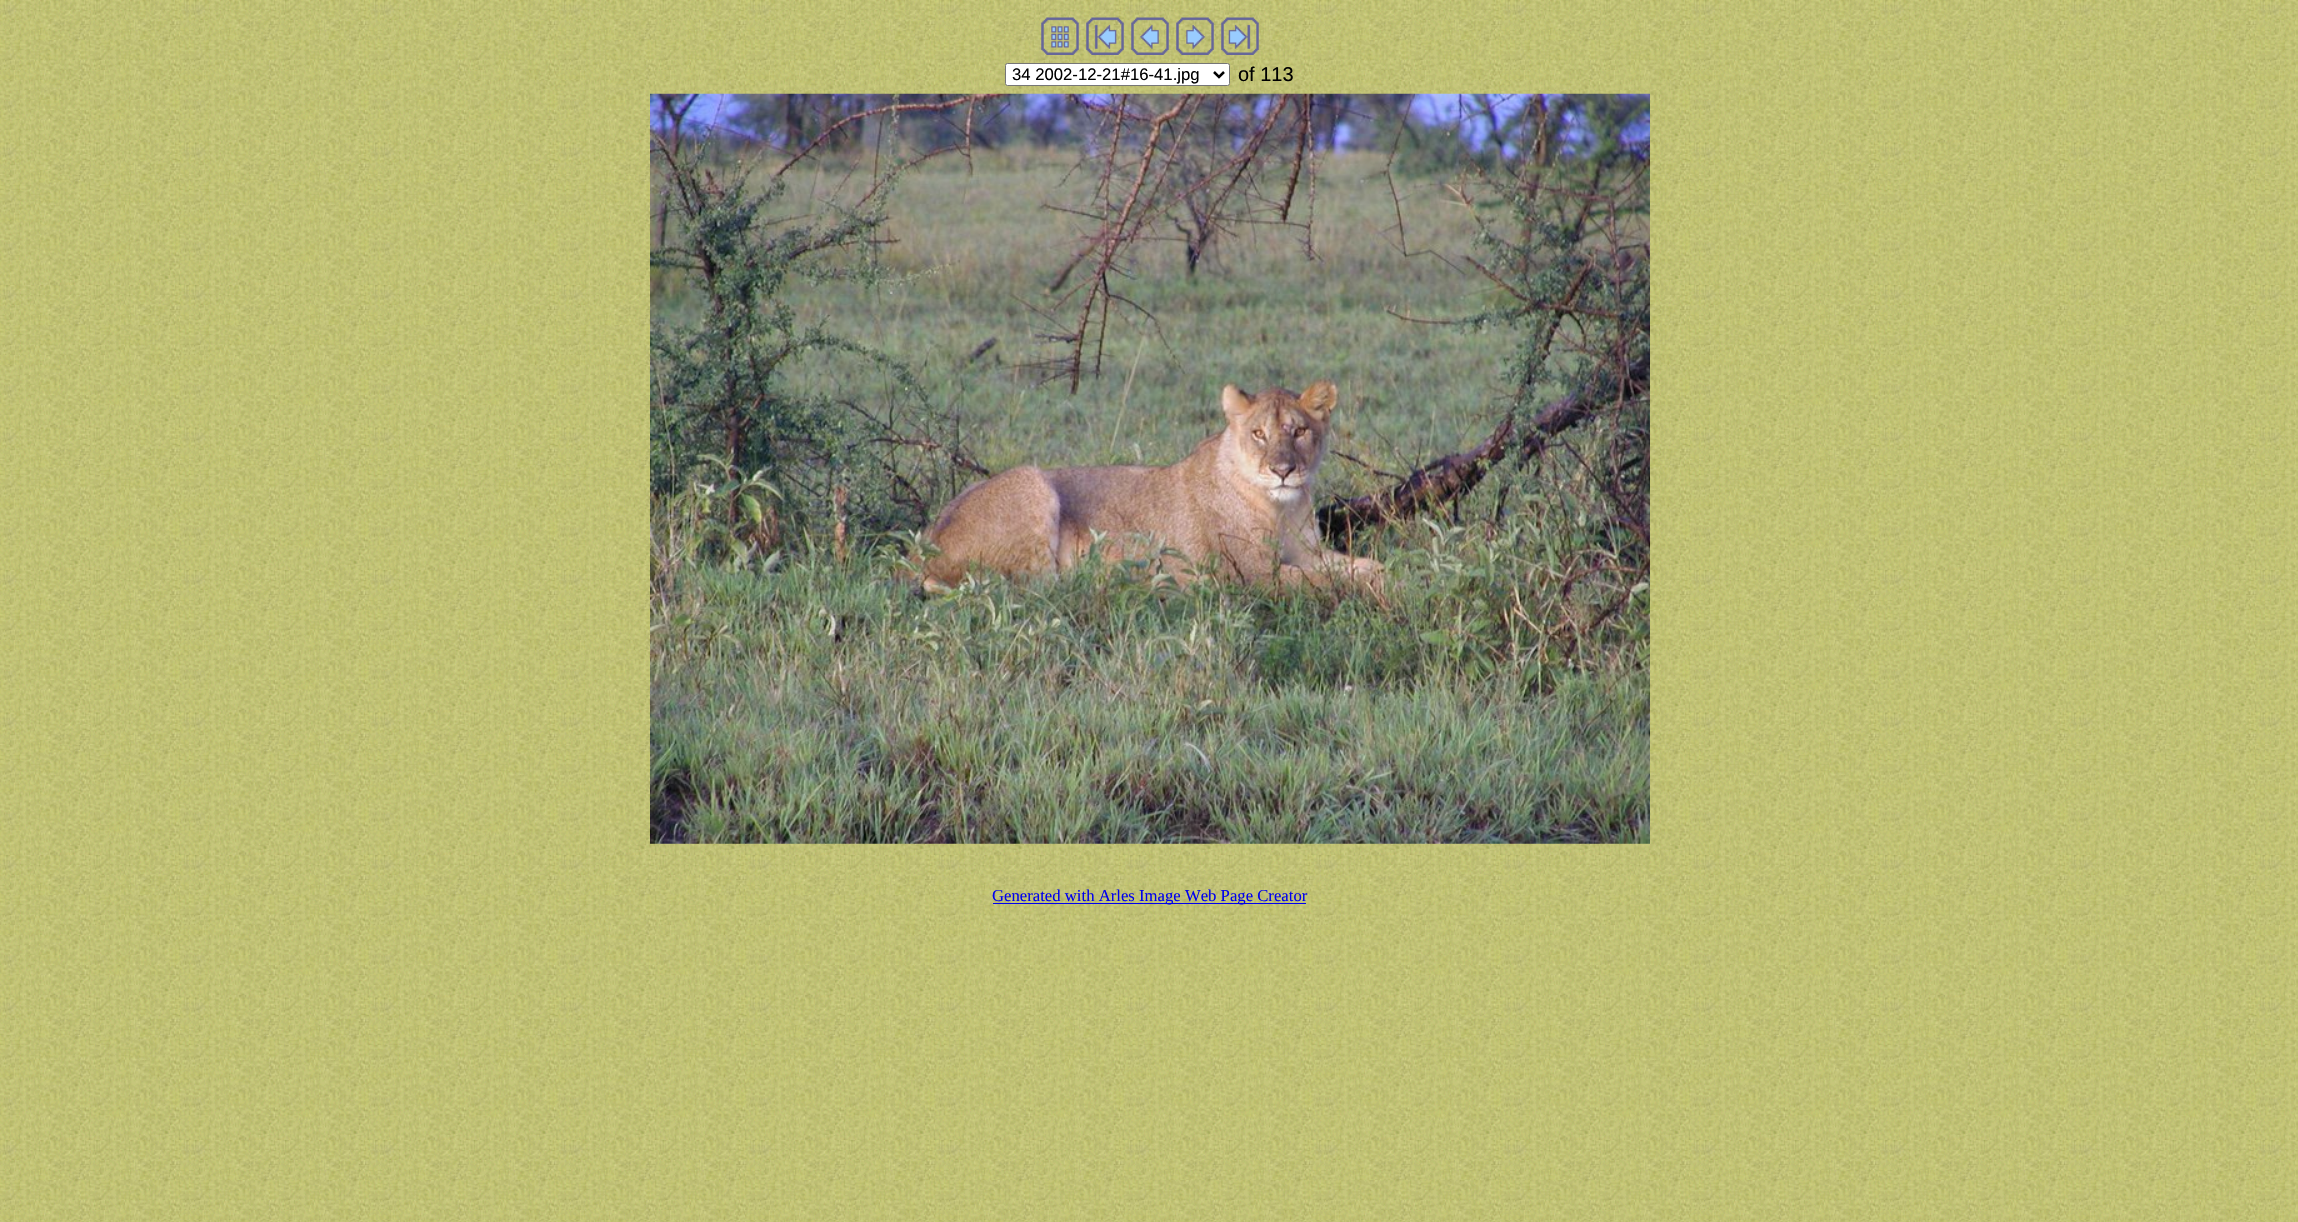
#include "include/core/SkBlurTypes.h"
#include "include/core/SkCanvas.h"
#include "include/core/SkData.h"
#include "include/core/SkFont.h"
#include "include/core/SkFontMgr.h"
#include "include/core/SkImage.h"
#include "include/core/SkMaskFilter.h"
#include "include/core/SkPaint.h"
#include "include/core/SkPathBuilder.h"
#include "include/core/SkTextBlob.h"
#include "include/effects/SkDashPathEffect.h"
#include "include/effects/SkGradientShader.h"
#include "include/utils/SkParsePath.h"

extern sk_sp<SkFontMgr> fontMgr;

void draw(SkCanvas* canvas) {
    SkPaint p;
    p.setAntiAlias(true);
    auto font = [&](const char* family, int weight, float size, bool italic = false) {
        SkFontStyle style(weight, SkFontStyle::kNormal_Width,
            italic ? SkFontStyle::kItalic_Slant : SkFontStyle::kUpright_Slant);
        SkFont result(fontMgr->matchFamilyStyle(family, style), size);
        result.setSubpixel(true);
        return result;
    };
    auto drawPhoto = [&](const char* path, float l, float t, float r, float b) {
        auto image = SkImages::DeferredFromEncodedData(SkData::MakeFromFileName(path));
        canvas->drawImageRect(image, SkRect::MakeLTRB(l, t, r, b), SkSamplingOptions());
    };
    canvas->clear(0xFFFFFFFF);
    drawPhoto("media/1.png", 0, 0, 2298, 1222);
    drawPhoto("media/2.png", 1041, 17, 1079, 55);
    drawPhoto("media/3.png", 1086, 17, 1124, 55);
    drawPhoto("media/4.png", 1131, 17, 1169, 55);
    drawPhoto("media/5.png", 1176, 17, 1214, 55);
    drawPhoto("media/6.png", 1221, 17, 1259, 55);
    p.setColor(0xFFFFFFFF);
    canvas->drawRoundRect(SkRect::MakeLTRB(1005.5f, 63.5f, 1229.5f, 85.5f), 2, 2, p);
    p.setStyle(SkPaint::kStroke_Style);
    p.setStrokeWidth(1);
    p.setColor(0xFF767676);
    canvas->drawRoundRect(SkRect::MakeLTRB(1005.5f, 63.5f, 1229.5f, 85.5f), 2, 2, p);
    p.setStrokeWidth(2.5f);
    p.setColor(0xFF000000);
    canvas->drawPath(SkPathBuilder().moveTo(1214, 72).lineTo(1219, 77).lineTo(1224, 72).detach(), p);
    auto font1 = font("Liberation Sans", 400, 16.7f);
    p.setStyle(SkPaint::kFill_Style);
    canvas->drawString("34 2002-12-21#16-41.jpg", 1012, 80, font1, p);
    auto font2 = font("Liberation Sans", 400, 20);
    canvas->drawString("of 113", 1238, 81, font2, p);
    drawPhoto("media/7.png", 650, 93, 1650, 844);
    p.setColor(0xFF0000EE);
    canvas->drawRect(SkRect::MakeLTRB(993, 903, 1306, 904), p);
    auto font3 = font("Liberation Serif", 400, 16.7f);
    canvas->drawString("Generated with Arles Image Web Page Creator", 992, 901, font3, p);
}
